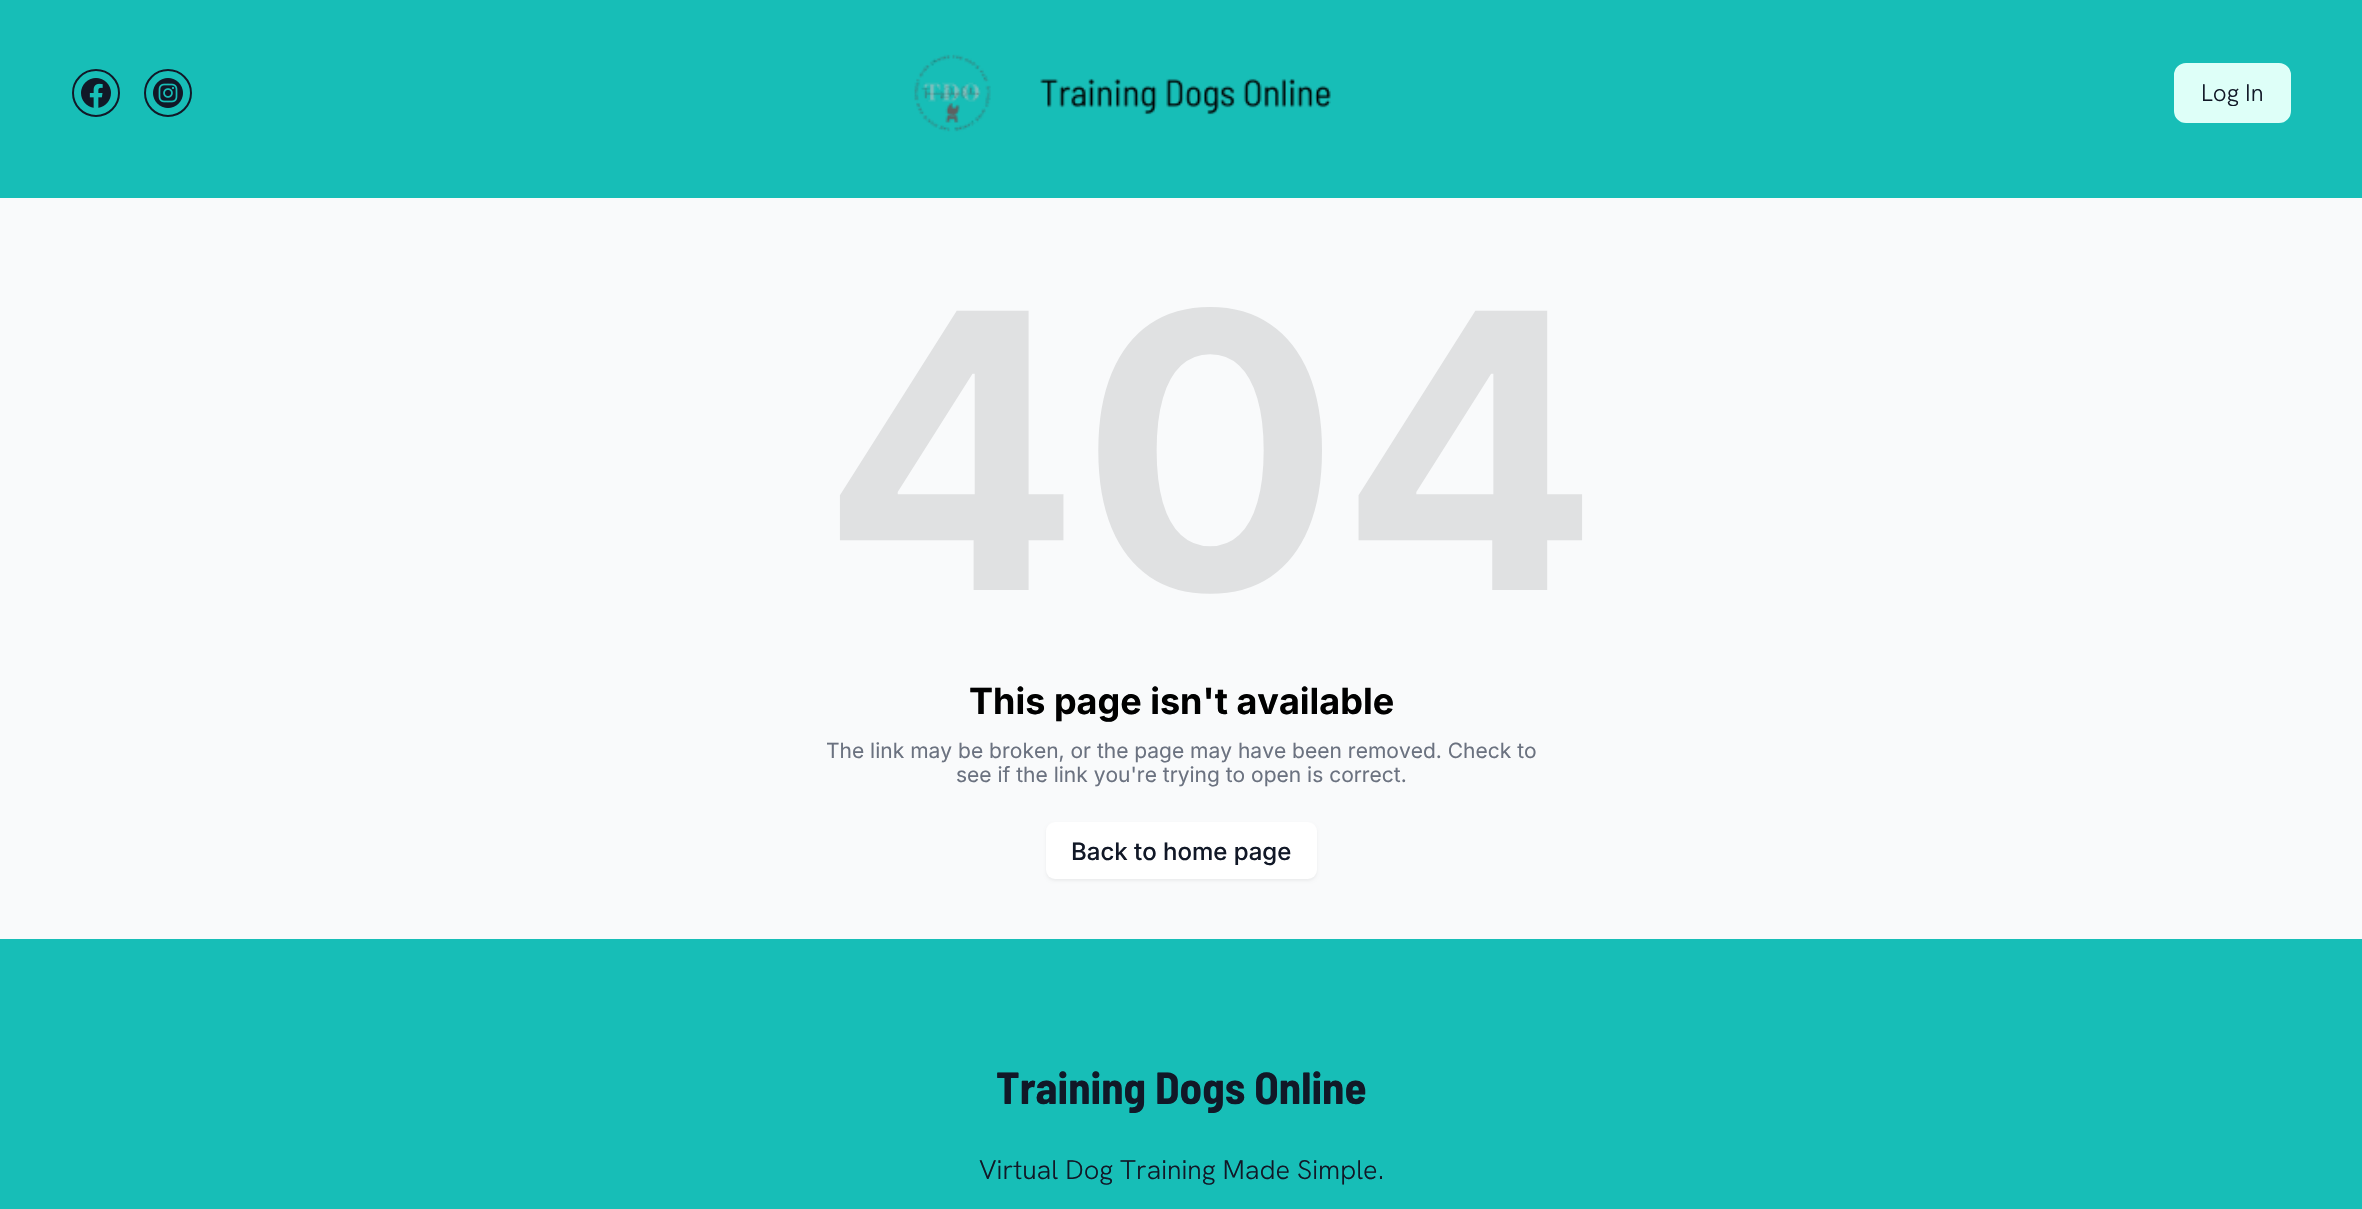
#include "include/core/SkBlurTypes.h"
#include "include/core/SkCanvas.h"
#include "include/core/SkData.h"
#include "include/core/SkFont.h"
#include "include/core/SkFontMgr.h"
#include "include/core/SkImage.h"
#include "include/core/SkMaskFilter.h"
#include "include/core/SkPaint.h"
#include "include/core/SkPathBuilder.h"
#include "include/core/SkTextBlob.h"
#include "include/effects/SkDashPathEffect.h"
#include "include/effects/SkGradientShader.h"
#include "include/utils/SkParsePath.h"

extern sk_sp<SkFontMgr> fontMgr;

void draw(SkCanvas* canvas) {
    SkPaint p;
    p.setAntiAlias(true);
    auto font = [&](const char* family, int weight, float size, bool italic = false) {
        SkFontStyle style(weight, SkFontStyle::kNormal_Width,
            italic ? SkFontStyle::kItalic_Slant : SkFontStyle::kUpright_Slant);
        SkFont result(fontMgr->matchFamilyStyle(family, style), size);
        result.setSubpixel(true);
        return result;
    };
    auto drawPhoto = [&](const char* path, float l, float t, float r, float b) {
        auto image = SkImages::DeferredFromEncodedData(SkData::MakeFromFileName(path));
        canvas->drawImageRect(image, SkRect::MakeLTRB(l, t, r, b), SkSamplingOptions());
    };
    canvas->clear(0xFFF9FAFB);
    p.setColor(0xFF17BEB7);
    canvas->drawRect(SkRect::MakeLTRB(0, 0, 2362, 198), p);
    p.setStyle(SkPaint::kStroke_Style);
    p.setStrokeWidth(2);
    p.setColor(0xFF111827);
    canvas->drawCircle(96, 93, 23, p);
    drawPhoto("media/1.png", 81, 78, 111, 108);
    canvas->drawCircle(168, 93, 23, p);
    drawPhoto("media/2.png", 153, 78, 183, 108);
    drawPhoto("media/3.png", 914, 54, 1331, 132);
    p.setStyle(SkPaint::kFill_Style);
    p.setColor(0xFFDEFFF8);
    canvas->drawRoundRect(SkRect::MakeLTRB(2175.5f, 64.5f, 2289.5f, 121.5f), 10.5f, 10.5f, p);
    p.setStyle(SkPaint::kStroke_Style);
    p.setStrokeWidth(3);
    canvas->drawRoundRect(SkRect::MakeLTRB(2175.5f, 64.5f, 2289.5f, 121.5f), 10.5f, 10.5f, p);
    auto font1 = font("Hanken Grotesk", 300, 24);
    p.setStyle(SkPaint::kFill_Style);
    p.setColor(0xFF111827);
    canvas->drawString("Log In", 2201, 101, font1, p);
    auto font2 = font("Inter", 700, 384);
    p.setColor(0xFFE0E1E2);
    canvas->drawString("404", 821, 590, font2, p);
    auto font3 = font("Inter", 700, 36);
    p.setColor(0xFF000000);
    canvas->drawString("This page isn't available", 969, 714, font3, p);
    auto font4 = font("Inter", 400, 21);
    p.setColor(0xFF6B7280);
    canvas->drawString("The link may be broken, or the page may have been removed. Check to", 826, 758, font4, p);
    canvas->drawString("see if the link you're trying to open is correct.", 956, 782, font4, p);
    p.setColor(0x0D000000);
    p.setMaskFilter(SkMaskFilter::MakeBlur(kNormal_SkBlurStyle, 1.5f));
    canvas->drawRoundRect(SkRect::MakeLTRB(1046, 824, 1317, 881), 9, 9, p);
    p.setMaskFilter(nullptr);
    p.setColor(0xFFFFFFFF);
    canvas->drawRoundRect(SkRect::MakeLTRB(1046, 822, 1317, 879), 9, 9, p);
    auto font5 = font("Inter", 500, 24);
    p.setColor(0xFF111827);
    canvas->drawString("Back to home page", 1071, 860, font5, p);
    p.setColor(0xFF17BEB7);
    canvas->drawRect(SkRect::MakeLTRB(0, 939, 2362, 1209), p);
    auto font6 = font("Barlow Semi Condensed", 700, 45);
    p.setColor(0xFF111827);
    canvas->drawString("Training Dogs Online", 996, 1104, font6, p);
    auto font7 = font("Hanken Grotesk", 300, 27);
    canvas->drawString("Virtual Dog Training Made Simple.", 979, 1179, font7, p);
}
